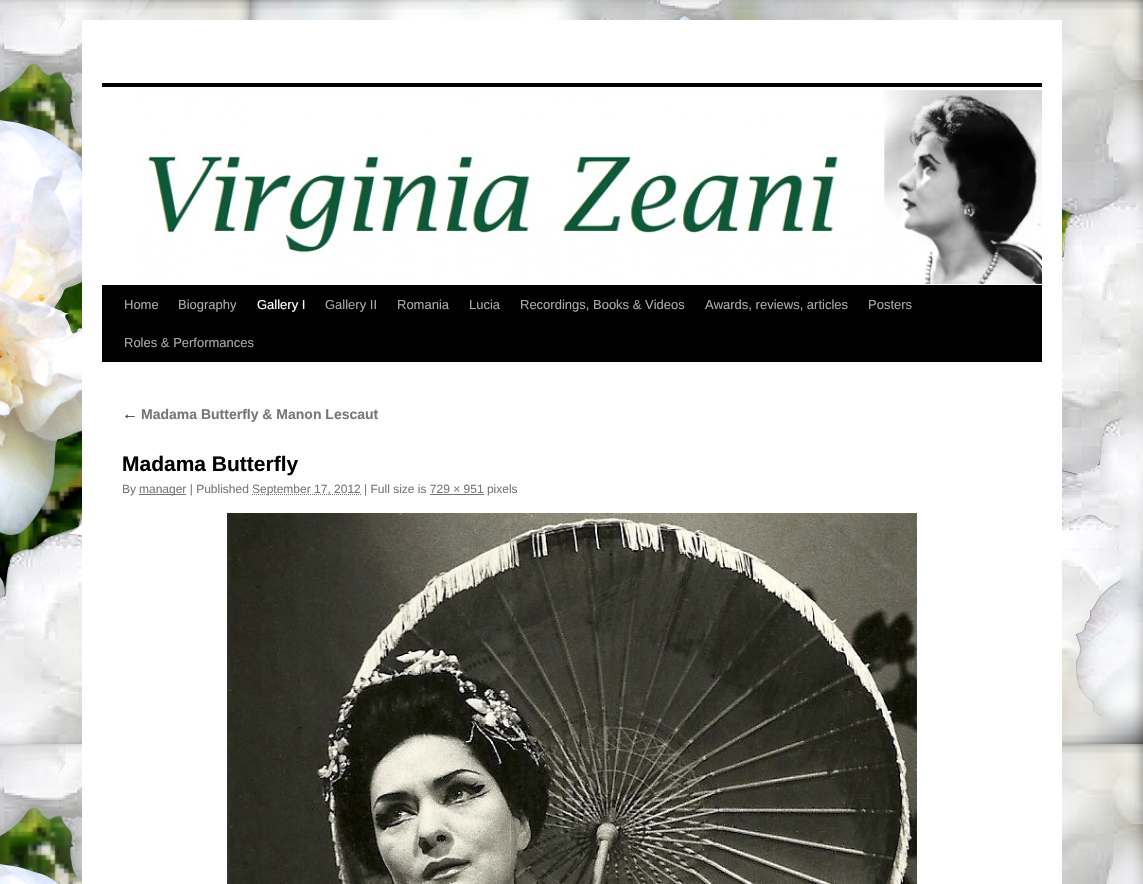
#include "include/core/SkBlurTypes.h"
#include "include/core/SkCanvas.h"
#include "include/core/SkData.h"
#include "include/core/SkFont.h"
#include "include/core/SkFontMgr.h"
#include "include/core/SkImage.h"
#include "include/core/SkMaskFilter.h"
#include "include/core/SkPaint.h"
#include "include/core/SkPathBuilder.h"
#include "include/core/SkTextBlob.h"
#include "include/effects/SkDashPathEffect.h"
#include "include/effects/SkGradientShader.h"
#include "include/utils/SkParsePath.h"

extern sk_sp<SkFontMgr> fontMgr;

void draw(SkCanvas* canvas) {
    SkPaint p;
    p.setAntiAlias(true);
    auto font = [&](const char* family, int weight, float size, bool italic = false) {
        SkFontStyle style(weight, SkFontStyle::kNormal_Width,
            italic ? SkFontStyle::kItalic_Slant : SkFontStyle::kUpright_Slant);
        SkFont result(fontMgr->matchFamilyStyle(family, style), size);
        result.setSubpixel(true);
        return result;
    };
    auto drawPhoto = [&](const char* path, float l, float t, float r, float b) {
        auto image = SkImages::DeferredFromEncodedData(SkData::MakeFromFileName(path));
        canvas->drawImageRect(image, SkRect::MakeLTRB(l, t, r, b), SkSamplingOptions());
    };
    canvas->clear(0xFFFFFFFF);
    drawPhoto("media/1.png", 0, 0, 1143, 884);
    {
        const struct { float l, t, r, b; SkColor color; } items[] = {
            {82, 20, 1062, 884, 0xFFFFFFFF},
            {102, 83, 1042, 87, 0xFF000000},
            {102, 285, 1042, 362, 0xFF000000},
        };
        for (auto [l, t, r, b, color] : items) {
            p.setColor(color);
            canvas->drawRect(SkRect::MakeLTRB(l, t, r, b), p);
        }
    }
    drawPhoto("media/2.png", 142, 90, 1042, 285);
    auto font1 = font("Liberation Sans", 400, 13);
    p.setColor(0xFFAAAAAA);
    canvas->drawString("Home", 124, 309, font1, p);
    canvas->drawString("Biography", 178, 309, font1, p);
    p.setColor(0xFFFFFFFF);
    canvas->drawString("Gallery I", 257, 309, font1, p);
    p.setColor(0xFFAAAAAA);
    {
        const struct { const char* s; float x, y; } items[] = {
            {"Gallery II", 325, 309},
            {"Romania", 397, 309},
            {"Lucia", 469, 309},
            {"Recordings, Books & Videos", 520, 309},
            {"Awards, reviews, articles", 705, 309},
            {"Posters", 868, 309},
            {"Roles & Performances", 124, 347},
        };
        for (auto [s, x, y] : items) {
            canvas->drawString(s, x, y, font1, p);
        }
    }
    auto font2 = font("Liberation Serif", 400, 16, true);
    p.setColor(0xFF333333);
    canvas->drawString("←", 122, 419, font2, p);
    auto font3 = font("Liberation Sans", 700, 14);
    p.setColor(0xFF777777);
    canvas->drawString("Madama Butterfly & Manon Lescaut", 141, 419, font3, p);
    auto font4 = font("Liberation Sans", 700, 21);
    p.setColor(0xFF000000);
    canvas->drawString("Madama Butterfly", 122, 471, font4, p);
    auto font5 = font("Liberation Sans", 400, 12);
    p.setColor(0xFF777777);
    canvas->drawString("By", 122, 493, font5, p);
    canvas->drawRect(SkRect::MakeLTRB(139, 494, 186, 495), p);
    canvas->drawString("manager | Published", 139, 493, font5, p);
    p.setStyle(SkPaint::kStroke_Style);
    p.setStrokeWidth(1);
    p.setPathEffect(SkDashPathEffect::Make({{1, 1}}, 0));
    canvas->drawPath(SkPathBuilder().moveTo(252, 494.5f).lineTo(361, 494.5f).detach(), p);
    p.setPathEffect(nullptr);
    p.setStyle(SkPaint::kFill_Style);
    canvas->drawString("September 17, 2012 | Full size is 729 × 951 pixels", 252, 493, font5, p);
    canvas->drawRect(SkRect::MakeLTRB(430, 494, 484, 495), p);
    drawPhoto("media/3.png", 227, 513, 917, 884);
}
